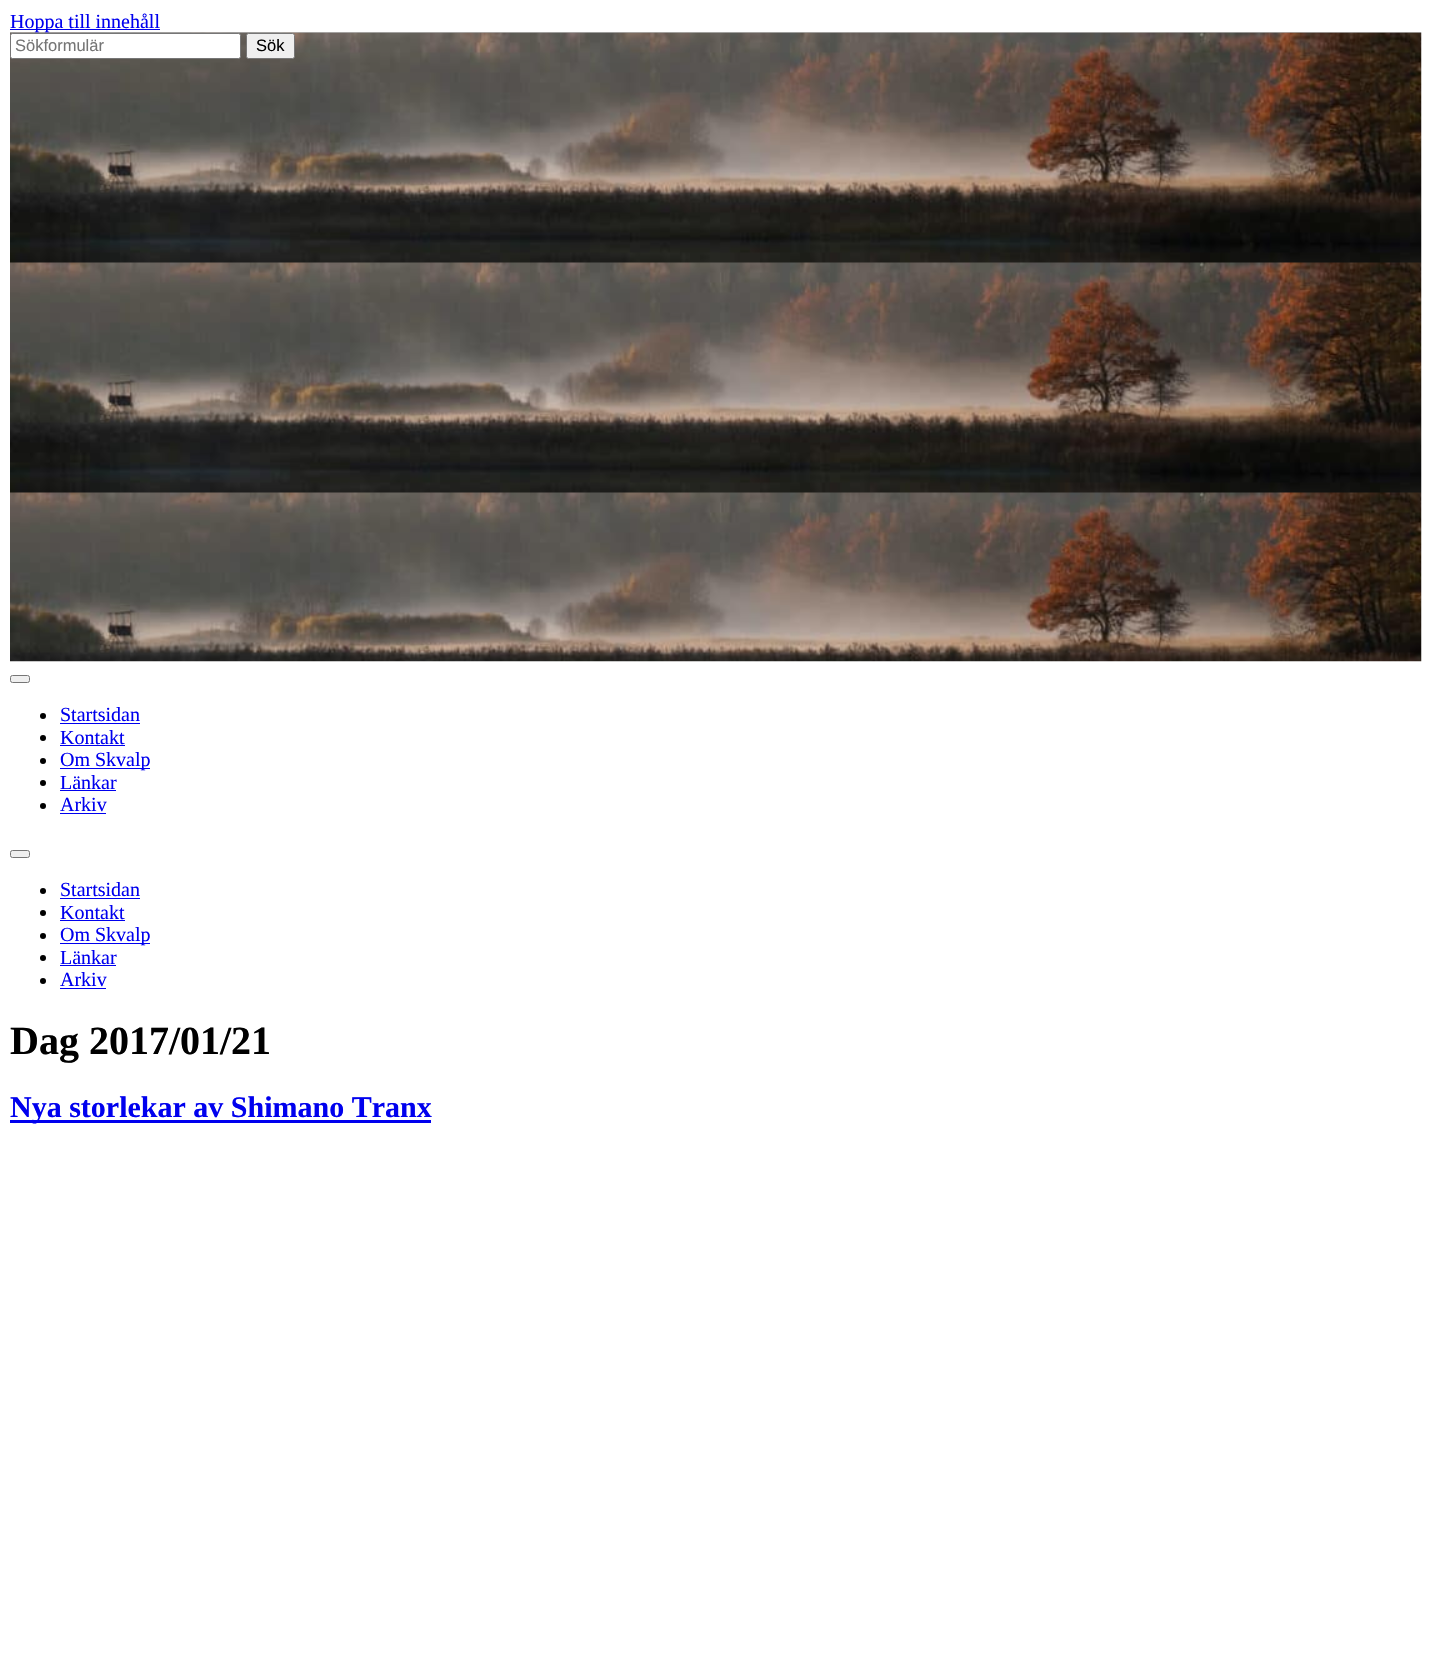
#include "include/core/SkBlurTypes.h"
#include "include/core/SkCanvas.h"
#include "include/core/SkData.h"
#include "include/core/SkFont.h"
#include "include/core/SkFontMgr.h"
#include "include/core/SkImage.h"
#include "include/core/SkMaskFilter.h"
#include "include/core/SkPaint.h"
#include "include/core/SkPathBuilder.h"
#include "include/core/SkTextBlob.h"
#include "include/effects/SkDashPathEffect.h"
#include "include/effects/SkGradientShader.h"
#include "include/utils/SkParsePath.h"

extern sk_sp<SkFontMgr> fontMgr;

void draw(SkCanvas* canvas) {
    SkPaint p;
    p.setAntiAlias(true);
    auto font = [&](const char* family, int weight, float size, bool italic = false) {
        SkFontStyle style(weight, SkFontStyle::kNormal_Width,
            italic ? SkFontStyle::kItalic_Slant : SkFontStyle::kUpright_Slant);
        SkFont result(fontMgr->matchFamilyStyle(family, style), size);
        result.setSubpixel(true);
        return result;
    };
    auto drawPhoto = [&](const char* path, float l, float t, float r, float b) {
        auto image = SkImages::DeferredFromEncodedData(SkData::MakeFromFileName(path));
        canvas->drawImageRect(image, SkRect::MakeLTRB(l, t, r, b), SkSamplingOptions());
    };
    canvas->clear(0xFFFFFFFF);
    p.setColor(0xFF0000EE);
    canvas->drawRect(SkRect::MakeLTRB(10, 29, 160, 30), p);
    drawPhoto("media/1.png", 10, 32, 1422, 662);
    auto font1 = font("Liberation Serif", 400, 20);
    canvas->drawString("Hoppa till innehåll", 10, 28, font1, p);
    p.setColor(0xFFFFFFFF);
    canvas->drawRoundRect(SkRect::MakeLTRB(10.5f, 33.5f, 240.5f, 58.5f), 2, 2, p);
    p.setStyle(SkPaint::kStroke_Style);
    p.setStrokeWidth(1);
    p.setColor(0xFF767676);
    canvas->drawRoundRect(SkRect::MakeLTRB(10.5f, 33.5f, 240.5f, 58.5f), 2, 2, p);
    auto font2 = font("Liberation Sans", 400, 16.5f);
    p.setStyle(SkPaint::kFill_Style);
    p.setColor(0xFF757575);
    canvas->drawString("Sökformulär", 15, 51, font2, p);
    p.setColor(0xFFEFEFEF);
    canvas->drawRoundRect(SkRect::MakeLTRB(246.5f, 33.5f, 294.5f, 58.5f), 2, 2, p);
    p.setStyle(SkPaint::kStroke_Style);
    p.setColor(0xFF767676);
    canvas->drawRoundRect(SkRect::MakeLTRB(246.5f, 33.5f, 294.5f, 58.5f), 2, 2, p);
    p.setStyle(SkPaint::kFill_Style);
    p.setColor(0xFF000000);
    canvas->drawString("Sök", 256, 51, font2, p);
    p.setColor(0xFFEFEFEF);
    canvas->drawRoundRect(SkRect::MakeLTRB(10.5f, 675.5f, 29.5f, 682.5f), 2, 2, p);
    p.setStyle(SkPaint::kStroke_Style);
    p.setColor(0xFF767676);
    canvas->drawRoundRect(SkRect::MakeLTRB(10.5f, 675.5f, 29.5f, 682.5f), 2, 2, p);
    p.setStyle(SkPaint::kFill_Style);
    p.setColor(0xFF000000);
    canvas->drawCircle(43, 716, 3, p);
    p.setColor(0xFF0000EE);
    canvas->drawString("Startsidan", 60, 721, font1, p);
    canvas->drawRect(SkRect::MakeLTRB(60, 723, 140, 724), p);
    p.setColor(0xFF000000);
    canvas->drawCircle(43, 738, 3, p);
    p.setColor(0xFF0000EE);
    canvas->drawString("Kontakt", 60, 744, font1, p);
    canvas->drawRect(SkRect::MakeLTRB(60, 745, 125, 746), p);
    p.setColor(0xFF000000);
    canvas->drawCircle(43, 761, 3, p);
    p.setColor(0xFF0000EE);
    canvas->drawRect(SkRect::MakeLTRB(60, 768, 150, 769), p);
    canvas->drawString("Om Skvalp", 60, 766, font1, p);
    p.setColor(0xFF000000);
    canvas->drawCircle(43, 783, 3, p);
    p.setColor(0xFF0000EE);
    canvas->drawString("Länkar", 60, 789, font1, p);
    canvas->drawRect(SkRect::MakeLTRB(60, 790, 116, 791), p);
    p.setColor(0xFF000000);
    canvas->drawCircle(43, 806, 3, p);
    p.setColor(0xFF0000EE);
    canvas->drawString("Arkiv", 60, 811, font1, p);
    canvas->drawRect(SkRect::MakeLTRB(60, 813, 106, 814), p);
    p.setColor(0xFFEFEFEF);
    canvas->drawRoundRect(SkRect::MakeLTRB(10.5f, 850.5f, 29.5f, 857.5f), 2, 2, p);
    p.setStyle(SkPaint::kStroke_Style);
    p.setColor(0xFF767676);
    canvas->drawRoundRect(SkRect::MakeLTRB(10.5f, 850.5f, 29.5f, 857.5f), 2, 2, p);
    p.setStyle(SkPaint::kFill_Style);
    p.setColor(0xFF000000);
    canvas->drawCircle(43, 891, 3, p);
    p.setColor(0xFF0000EE);
    canvas->drawString("Startsidan", 60, 896, font1, p);
    canvas->drawRect(SkRect::MakeLTRB(60, 898, 140, 899), p);
    p.setColor(0xFF000000);
    canvas->drawCircle(43, 913, 3, p);
    p.setColor(0xFF0000EE);
    canvas->drawString("Kontakt", 60, 919, font1, p);
    canvas->drawRect(SkRect::MakeLTRB(60, 920, 125, 921), p);
    p.setColor(0xFF000000);
    canvas->drawCircle(43, 936, 3, p);
    p.setColor(0xFF0000EE);
    canvas->drawRect(SkRect::MakeLTRB(60, 943, 150, 944), p);
    canvas->drawString("Om Skvalp", 60, 941, font1, p);
    p.setColor(0xFF000000);
    canvas->drawCircle(43, 958, 3, p);
    p.setColor(0xFF0000EE);
    canvas->drawString("Länkar", 60, 964, font1, p);
    canvas->drawRect(SkRect::MakeLTRB(60, 965, 116, 966), p);
    p.setColor(0xFF000000);
    canvas->drawCircle(43, 981, 3, p);
    p.setColor(0xFF0000EE);
    canvas->drawString("Arkiv", 60, 986, font1, p);
    canvas->drawRect(SkRect::MakeLTRB(60, 988, 106, 989), p);
    auto font3 = font("Liberation Serif", 700, 40);
    p.setColor(0xFF000000);
    canvas->drawString("Dag 2017/01/21", 10, 1054, font3, p);
    p.setColor(0xFF0000EE);
    canvas->drawRect(SkRect::MakeLTRB(10, 1120, 431, 1123), p);
    auto font4 = font("Liberation Serif", 700, 30);
    canvas->drawString("Nya storlekar av Shimano Tranx", 10, 1117, font4, p);
}
